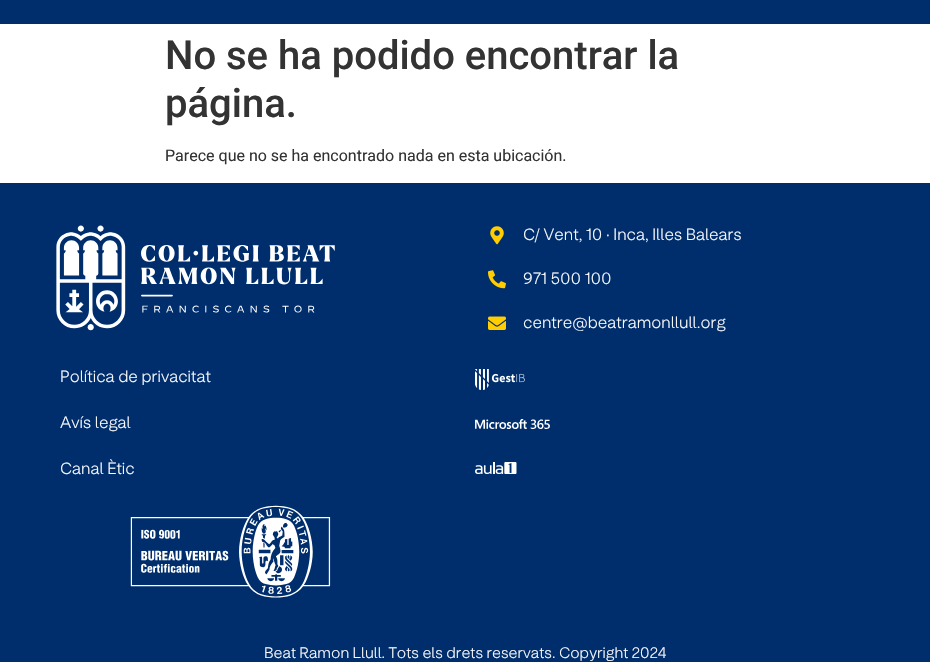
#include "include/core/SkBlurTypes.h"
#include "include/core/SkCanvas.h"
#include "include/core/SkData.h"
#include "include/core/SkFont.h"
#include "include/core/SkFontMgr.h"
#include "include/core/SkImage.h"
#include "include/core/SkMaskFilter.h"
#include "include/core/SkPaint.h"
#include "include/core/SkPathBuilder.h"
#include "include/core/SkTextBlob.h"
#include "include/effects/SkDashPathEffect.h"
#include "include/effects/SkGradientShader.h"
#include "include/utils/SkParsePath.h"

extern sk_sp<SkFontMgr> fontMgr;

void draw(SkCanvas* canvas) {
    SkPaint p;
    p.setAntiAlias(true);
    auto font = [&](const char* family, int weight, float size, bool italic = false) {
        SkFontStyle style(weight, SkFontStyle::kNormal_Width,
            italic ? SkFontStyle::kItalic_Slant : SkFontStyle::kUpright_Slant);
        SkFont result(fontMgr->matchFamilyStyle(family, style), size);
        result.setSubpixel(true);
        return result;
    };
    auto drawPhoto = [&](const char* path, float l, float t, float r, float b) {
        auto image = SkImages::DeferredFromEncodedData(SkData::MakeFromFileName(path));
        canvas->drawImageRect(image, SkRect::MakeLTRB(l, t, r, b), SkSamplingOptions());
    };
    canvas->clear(0xFFFFFFFF);
    p.setColor(0xFF002E6D);
    canvas->drawRect(SkRect::MakeLTRB(0, 0, 930, 24), p);
    auto font1 = font("Roboto", 500, 40);
    p.setColor(0xFF333333);
    canvas->drawString("No se ha podido encontrar la", 165, 69, font1, p);
    canvas->drawString("página.", 165, 117, font1, p);
    auto font2 = font("Roboto", 400, 16);
    canvas->drawString("Parece que no se ha encontrado nada en esta ubicación.", 165, 161, font2, p);
    p.setColor(0xFF002E6D);
    canvas->drawRect(SkRect::MakeLTRB(0, 183, 930, 662), p);
    drawPhoto("media/1.png", 56, 225, 335, 331);
    drawPhoto("media/2.png", 490, 226, 504, 245);
    auto font3 = font("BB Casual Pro", 300, 16);
    p.setColor(0xFFFBFBFB);
    canvas->drawString("C/ Vent, 10 · Inca, Illes Balears", 523, 240, font3, p);
    drawPhoto("media/3.png", 488, 270, 506, 289);
    canvas->drawString("971 500 100", 523, 284, font3, p);
    drawPhoto("media/4.png", 488, 316, 506, 330);
    {
        const struct { const char* s; float x, y; } items[] = {
            {"centre@beatramonllull.org", 523, 328},
            {"Política de privacitat", 60, 382},
            {"Avís legal", 60, 428},
            {"Canal Ètic", 60, 474},
        };
        for (auto [s, x, y] : items) {
            canvas->drawString(s, x, y, font3, p);
        }
    }
    drawPhoto("media/5.png", 475, 369, 525, 390);
    drawPhoto("media/6.png", 475, 419, 550, 429);
    drawPhoto("media/7.png", 475, 462, 517, 474);
    drawPhoto("media/8.png", 130, 505, 331, 598);
    auto font4 = font("BB Casual Pro", 300, 15);
    canvas->drawString("Beat Ramon Llull. Tots els drets reservats. Copyright 2024", 264, 658, font4, p);
}
